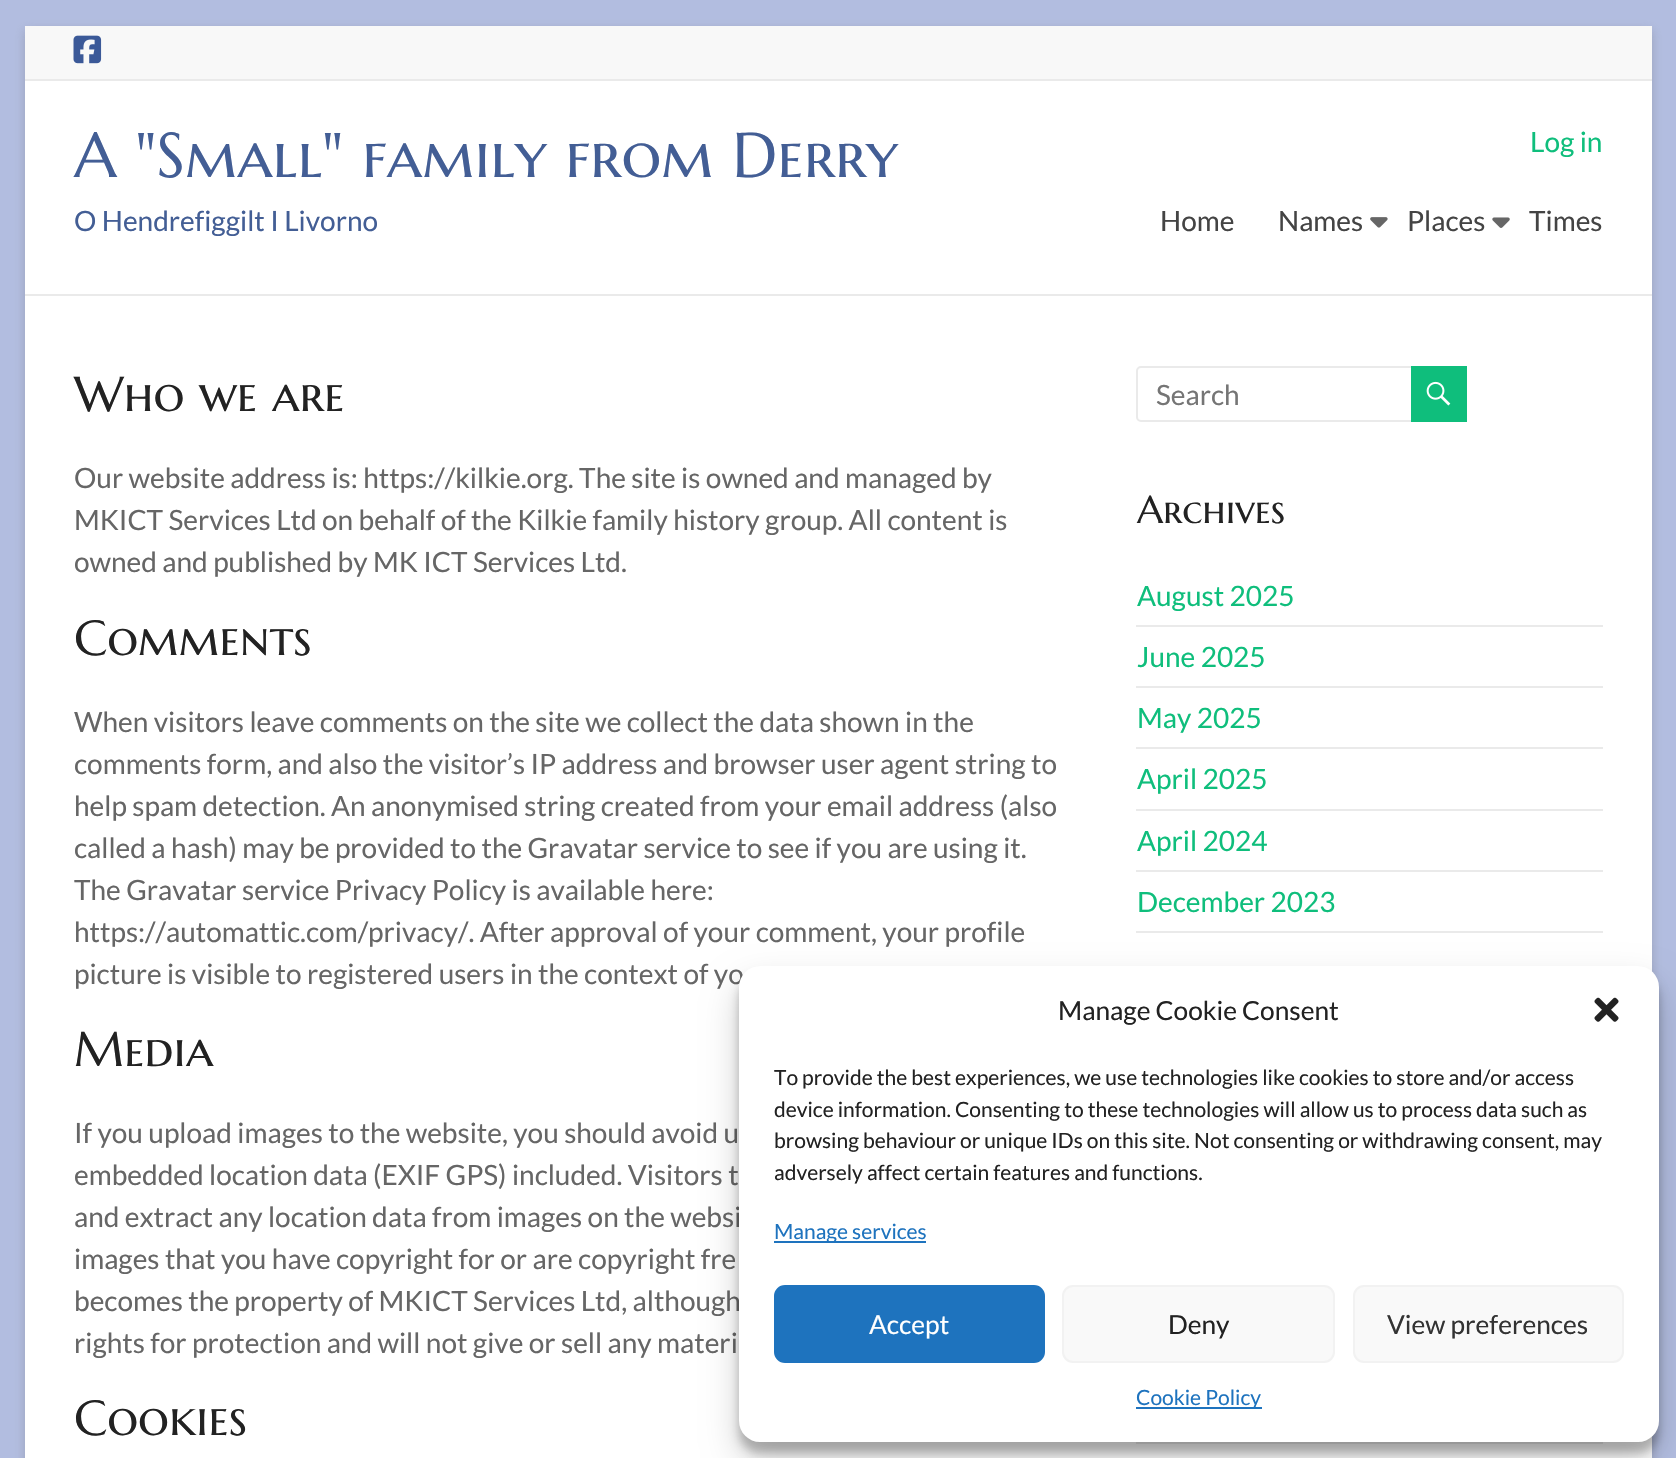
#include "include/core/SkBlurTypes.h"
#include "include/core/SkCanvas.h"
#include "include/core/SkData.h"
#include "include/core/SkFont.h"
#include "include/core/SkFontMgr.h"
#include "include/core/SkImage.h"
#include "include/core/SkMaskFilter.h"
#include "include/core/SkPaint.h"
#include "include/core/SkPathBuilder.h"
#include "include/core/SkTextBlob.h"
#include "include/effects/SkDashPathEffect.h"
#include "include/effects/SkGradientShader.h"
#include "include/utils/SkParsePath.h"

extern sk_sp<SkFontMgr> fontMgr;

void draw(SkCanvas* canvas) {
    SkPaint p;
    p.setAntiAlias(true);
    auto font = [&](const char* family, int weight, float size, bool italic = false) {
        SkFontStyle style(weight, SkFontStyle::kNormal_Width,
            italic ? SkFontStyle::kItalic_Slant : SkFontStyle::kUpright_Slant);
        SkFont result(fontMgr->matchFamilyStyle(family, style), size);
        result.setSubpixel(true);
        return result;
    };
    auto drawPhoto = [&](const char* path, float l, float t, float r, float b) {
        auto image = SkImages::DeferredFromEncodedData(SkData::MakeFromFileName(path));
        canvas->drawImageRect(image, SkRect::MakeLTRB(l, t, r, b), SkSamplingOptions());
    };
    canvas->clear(0xFFB2BDE0);
    p.setColor(0x4D646464);
    p.setMaskFilter(SkMaskFilter::MakeBlur(kNormal_SkBlurStyle, 5));
    canvas->drawRect(SkRect::MakeLTRB(25, 30, 1652, 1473), p);
    p.setMaskFilter(nullptr);
    {
        const struct { float l, t, r, b; SkColor color; } items[] = {
            {25, 81, 1652, 1458, 0xFFFFFFFF},
            {25, 26, 1652, 79, 0xFFF8F8F8},
            {25, 79, 1652, 81, 0xFFEAEAEA},
        };
        for (auto [l, t, r, b, color] : items) {
            p.setColor(color);
            canvas->drawRect(SkRect::MakeLTRB(l, t, r, b), p);
        }
    }
    drawPhoto("media/1.png", 73, 35, 102, 64);
    canvas->drawRect(SkRect::MakeLTRB(25, 294, 1652, 296), p);
    auto font1 = font("Marcellus SC", 400, 63);
    p.setColor(0xFF435E95);
    canvas->drawString("A \"Small\" family from Derry", 74, 177, font1, p);
    auto font2 = font("Lato", 400, 28);
    canvas->drawString("O Hendrefiggilt I Livorno", 74, 231, font2, p);
    p.setColor(0xFF0FBE7C);
    canvas->drawString("Log in", 1530, 152, font2, p);
    p.setColor(0xFF444444);
    canvas->drawString("Home", 1160, 231, font2, p);
    canvas->drawString("Names", 1278, 231, font2, p);
    drawPhoto("media/2.png", 1370, 217, 1388, 228);
    canvas->drawString("Places", 1407, 231, font2, p);
    drawPhoto("media/3.png", 1492, 217, 1510, 228);
    canvas->drawString("Times", 1529, 231, font2, p);
    auto font3 = font("Marcellus SC", 400, 49);
    p.setColor(0xFF222222);
    canvas->drawString("Who we are", 74, 411, font3, p);
    p.setColor(0xFF666666);
    {
        const struct { const char* s; float x, y; } items[] = {
            {"Our website address is: https://kilkie.org. The site is owned and managed by", 74, 488},
            {"MKICT Services Ltd on behalf of the Kilkie family history group. All content is", 74, 530},
            {"owned and published by MK ICT Services Ltd.", 74, 572},
        };
        for (auto [s, x, y] : items) {
            canvas->drawString(s, x, y, font2, p);
        }
    }
    p.setColor(0xFF222222);
    canvas->drawString("Comments", 74, 655, font3, p);
    p.setColor(0xFF666666);
    {
        const struct { const char* s; float x, y; } items[] = {
            {"When visitors leave comments on the site we collect the data shown in the", 74, 732},
            {"comments form, and also the visitor’s IP address and browser user agent string to", 74, 774},
            {"help spam detection. An anonymised string created from your email address (also", 74, 816},
            {"called a hash) may be provided to the Gravatar service to see if you are using it.", 74, 858},
            {"The Gravatar service Privacy Policy is available here:", 74, 900},
            {"https://automattic.com/privacy/. After approval of your comment, your profile", 74, 942},
            {"picture is visible to registered users in the context of yo", 74, 984},
        };
        for (auto [s, x, y] : items) {
            canvas->drawString(s, x, y, font2, p);
        }
    }
    p.setColor(0xFF222222);
    canvas->drawString("Media", 74, 1066, font3, p);
    p.setColor(0xFF666666);
    {
        const struct { const char* s; float x, y; } items[] = {
            {"If you upload images to the website, you should avoid u", 74, 1143},
            {"embedded location data (EXIF GPS) included. Visitors t", 74, 1185},
            {"and extract any location data from images on the websi", 74, 1227},
            {"images that you have copyright for or are copyright fre", 74, 1269},
            {"becomes the property of MKICT Services Ltd, although", 74, 1311},
            {"rights for protection and will not give or sell any materi", 74, 1353},
        };
        for (auto [s, x, y] : items) {
            canvas->drawString(s, x, y, font2, p);
        }
    }
    p.setColor(0xFF222222);
    canvas->drawString("Cookies", 74, 1435, font3, p);
    p.setStyle(SkPaint::kStroke_Style);
    p.setStrokeWidth(2);
    p.setColor(0xFFEAEAEA);
    canvas->drawRoundRect(SkRect::MakeLTRB(1137, 367, 1415, 421), 4, 4, p);
    p.setStyle(SkPaint::kFill_Style);
    p.setColor(0xFF757575);
    canvas->drawString("Search", 1156, 405, font2, p);
    p.setColor(0xFF0FBE7C);
    canvas->drawRect(SkRect::MakeLTRB(1411, 366, 1467, 422), p);
    drawPhoto("media/4.png", 1426, 381, 1451, 406);
    auto font4 = font("Marcellus SC", 400, 38.5f);
    p.setColor(0xFF222222);
    canvas->drawString("Archives", 1137, 523, font4, p);
    p.setColor(0xFFEAEAEA);
    canvas->drawRect(SkRect::MakeLTRB(1136, 625, 1603, 627), p);
    p.setColor(0xFF0FBE7C);
    canvas->drawString("August 2025", 1137, 606, font2, p);
    p.setColor(0xFFEAEAEA);
    canvas->drawRect(SkRect::MakeLTRB(1136, 686, 1603, 688), p);
    p.setColor(0xFF0FBE7C);
    canvas->drawString("June 2025", 1137, 667, font2, p);
    p.setColor(0xFFEAEAEA);
    canvas->drawRect(SkRect::MakeLTRB(1136, 747, 1603, 749), p);
    p.setColor(0xFF0FBE7C);
    canvas->drawString("May 2025", 1137, 728, font2, p);
    p.setColor(0xFFEAEAEA);
    canvas->drawRect(SkRect::MakeLTRB(1136, 809, 1603, 811), p);
    p.setColor(0xFF0FBE7C);
    canvas->drawString("April 2025", 1137, 789, font2, p);
    p.setColor(0xFFEAEAEA);
    canvas->drawRect(SkRect::MakeLTRB(1136, 870, 1603, 872), p);
    p.setColor(0xFF0FBE7C);
    canvas->drawString("April 2024", 1137, 851, font2, p);
    p.setColor(0xFFEAEAEA);
    canvas->drawRect(SkRect::MakeLTRB(1136, 931, 1603, 933), p);
    p.setColor(0xFF0FBE7C);
    canvas->drawString("December 2023", 1137, 912, font2, p);
    p.setColor(0xFFEAEAEA);
    canvas->drawRect(SkRect::MakeLTRB(1136, 1442, 1603, 1444), p);
    p.setColor(0x3B000000);
    p.setMaskFilter(SkMaskFilter::MakeBlur(kNormal_SkBlurStyle, 5));
    canvas->drawRoundRect(SkRect::MakeLTRB(739, 977, 1659, 1453), 21, 21, p);
    p.setMaskFilter(nullptr);
    p.setColor(0x30000000);
    p.setMaskFilter(SkMaskFilter::MakeBlur(kNormal_SkBlurStyle, 17.5f));
    canvas->drawRoundRect(SkRect::MakeLTRB(739, 984, 1659, 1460), 21, 21, p);
    p.setMaskFilter(nullptr);
    p.setColor(0xFFFFFFFF);
    canvas->drawRoundRect(SkRect::MakeLTRB(739, 966, 1659, 1442), 21, 21, p);
    auto font5 = font("Lato", 400, 26.25f);
    p.setColor(0xFF222222);
    canvas->drawString("Manage Cookie Consent", 1058, 1020, font5, p);
    drawPhoto("media/5.png", 1594, 997, 1619, 1022);
    auto font6 = font("Lato", 400, 21);
    {
        const struct { const char* s; float x, y; } items[] = {
            {"To provide the best experiences, we use technologies like cookies to store and/or access", 774, 1085},
            {"device information. Consenting to these technologies will allow us to process data such as", 774, 1117},
            {"browsing behaviour or unique IDs on this site. Not consenting or withdrawing consent, may", 774, 1148},
            {"adversely affect certain features and functions.", 774, 1180},
        };
        for (auto [s, x, y] : items) {
            canvas->drawString(s, x, y, font6, p);
        }
    }
    p.setColor(0xFF1E73BE);
    canvas->drawRect(SkRect::MakeLTRB(774, 1241, 926, 1243), p);
    canvas->drawString("Manage services", 774, 1239, font6, p);
    canvas->drawRoundRect(SkRect::MakeLTRB(775, 1286, 1044, 1362), 10, 10, p);
    p.setStyle(SkPaint::kStroke_Style);
    canvas->drawRoundRect(SkRect::MakeLTRB(775, 1286, 1044, 1362), 10, 10, p);
    p.setStyle(SkPaint::kFill_Style);
    p.setColor(0xFFFFFFFF);
    canvas->drawString("Accept", 869, 1334, font5, p);
    p.setColor(0xFFF9F9F9);
    canvas->drawRoundRect(SkRect::MakeLTRB(1063, 1286, 1334, 1362), 10, 10, p);
    p.setStyle(SkPaint::kStroke_Style);
    p.setColor(0xFFF2F2F2);
    canvas->drawRoundRect(SkRect::MakeLTRB(1063, 1286, 1334, 1362), 10, 10, p);
    p.setStyle(SkPaint::kFill_Style);
    p.setColor(0xFF222222);
    canvas->drawString("Deny", 1168, 1334, font5, p);
    p.setColor(0xFFF9F9F9);
    canvas->drawRoundRect(SkRect::MakeLTRB(1354, 1286, 1623, 1362), 10, 10, p);
    p.setStyle(SkPaint::kStroke_Style);
    p.setColor(0xFFF2F2F2);
    canvas->drawRoundRect(SkRect::MakeLTRB(1354, 1286, 1623, 1362), 10, 10, p);
    p.setStyle(SkPaint::kFill_Style);
    p.setColor(0xFF333333);
    canvas->drawString("View preferences", 1387, 1334, font5, p);
    p.setColor(0xFF1E73BE);
    canvas->drawRect(SkRect::MakeLTRB(1136, 1407, 1262, 1409), p);
    canvas->drawString("Cookie Policy", 1136, 1405, font6, p);
}
